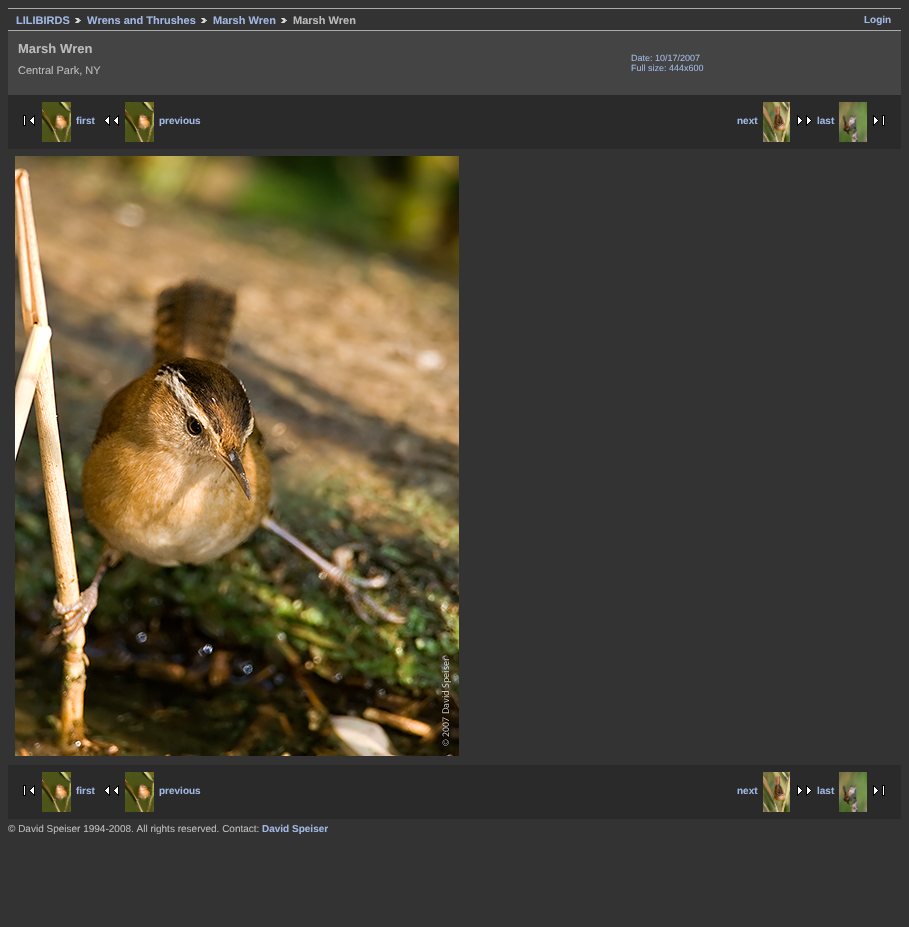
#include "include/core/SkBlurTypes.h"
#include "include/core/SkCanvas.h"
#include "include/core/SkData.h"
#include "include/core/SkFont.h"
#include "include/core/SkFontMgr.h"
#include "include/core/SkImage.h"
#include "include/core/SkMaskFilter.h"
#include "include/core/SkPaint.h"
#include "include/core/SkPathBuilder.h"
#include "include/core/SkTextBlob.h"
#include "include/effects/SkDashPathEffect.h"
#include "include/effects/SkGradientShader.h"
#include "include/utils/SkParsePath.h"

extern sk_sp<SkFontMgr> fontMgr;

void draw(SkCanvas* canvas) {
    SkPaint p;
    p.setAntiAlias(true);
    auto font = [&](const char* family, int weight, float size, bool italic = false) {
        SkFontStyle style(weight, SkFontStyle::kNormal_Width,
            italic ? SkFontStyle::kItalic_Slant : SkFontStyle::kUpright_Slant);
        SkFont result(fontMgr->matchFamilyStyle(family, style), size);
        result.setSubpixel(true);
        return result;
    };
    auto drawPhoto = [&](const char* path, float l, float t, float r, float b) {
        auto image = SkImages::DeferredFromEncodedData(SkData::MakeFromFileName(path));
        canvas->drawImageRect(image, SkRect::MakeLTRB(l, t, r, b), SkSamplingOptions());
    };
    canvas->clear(0xFF333333);
    p.setColor(0xFFAAAAAA);
    canvas->drawRect(SkRect::MakeLTRB(8, 8, 901, 9), p);
    canvas->drawRect(SkRect::MakeLTRB(8, 30, 901, 31), p);
    auto font1 = font("Liberation Sans", 700, 11);
    p.setColor(0xFFA1B7E3);
    canvas->drawString("LILIBIRDS", 16, 24, font1, p);
    drawPhoto("media/1.png", 75, 18, 81, 23);
    canvas->drawString("Wrens and Thrushes", 87, 24, font1, p);
    drawPhoto("media/1.png", 201, 18, 207, 23);
    canvas->drawString("Marsh Wren", 213, 24, font1, p);
    drawPhoto("media/1.png", 281, 18, 287, 23);
    p.setColor(0xFFBBBBBB);
    canvas->drawString("Marsh Wren", 293, 24, font1, p);
    auto font2 = font("Liberation Sans", 700, 10);
    p.setColor(0xFFA1B7E3);
    canvas->drawString("Login", 864, 23, font2, p);
    p.setColor(0xFF444444);
    canvas->drawRect(SkRect::MakeLTRB(8, 31, 901, 95), p);
    auto font3 = font("Liberation Sans", 700, 13);
    p.setColor(0xFFBBBBBB);
    canvas->drawString("Marsh Wren", 18, 53, font3, p);
    auto font4 = font("Liberation Sans", 400, 11);
    canvas->drawString("Central Park, NY", 18, 74, font4, p);
    auto font5 = font("Liberation Sans", 400, 9);
    p.setColor(0xFFA1B7E3);
    canvas->drawString("Date: 10/17/2007", 631, 61, font5, p);
    canvas->drawString("Full size: 444x600", 631, 71, font5, p);
    p.setColor(0xFF2A2A2A);
    canvas->drawRect(SkRect::MakeLTRB(8, 95, 901, 149), p);
    drawPhoto("media/2.png", 23, 115, 35, 126);
    drawPhoto("media/3.png", 42, 102, 71, 142);
    p.setColor(0xFFA1B7E3);
    canvas->drawString("first", 76, 124, font2, p);
    drawPhoto("media/4.png", 104, 115, 119, 126);
    drawPhoto("media/3.png", 125, 102, 154, 142);
    canvas->drawString("previous", 159, 124, font2, p);
    canvas->drawString("next", 737, 124, font2, p);
    drawPhoto("media/5.png", 763, 102, 790, 142);
    drawPhoto("media/6.png", 797, 115, 812, 126);
    canvas->drawString("last", 817, 124, font2, p);
    drawPhoto("media/7.png", 839, 102, 867, 142);
    drawPhoto("media/8.png", 873, 115, 885, 126);
    drawPhoto("media/9.png", 15, 156, 459, 756);
    p.setColor(0xFF2A2A2A);
    canvas->drawRect(SkRect::MakeLTRB(8, 765, 901, 819), p);
    drawPhoto("media/2.png", 23, 785, 35, 796);
    drawPhoto("media/10.png", 42, 772, 71, 812);
    p.setColor(0xFFA1B7E3);
    canvas->drawString("first", 76, 794, font2, p);
    drawPhoto("media/4.png", 104, 785, 119, 796);
    drawPhoto("media/10.png", 125, 772, 154, 812);
    canvas->drawString("previous", 159, 794, font2, p);
    canvas->drawString("next", 737, 794, font2, p);
    drawPhoto("media/11.png", 763, 772, 790, 812);
    drawPhoto("media/6.png", 797, 785, 812, 796);
    canvas->drawString("last", 817, 794, font2, p);
    drawPhoto("media/12.png", 839, 772, 867, 812);
    drawPhoto("media/8.png", 873, 785, 885, 796);
    auto font6 = font("Liberation Sans", 400, 10);
    p.setColor(0xFFBBBBBB);
    canvas->drawString("© David Speiser 1994-2008. All rights reserved. Contact:", 8, 832, font6, p);
    p.setColor(0xFFA1B7E3);
    canvas->drawString("David Speiser", 262, 832, font2, p);
}
